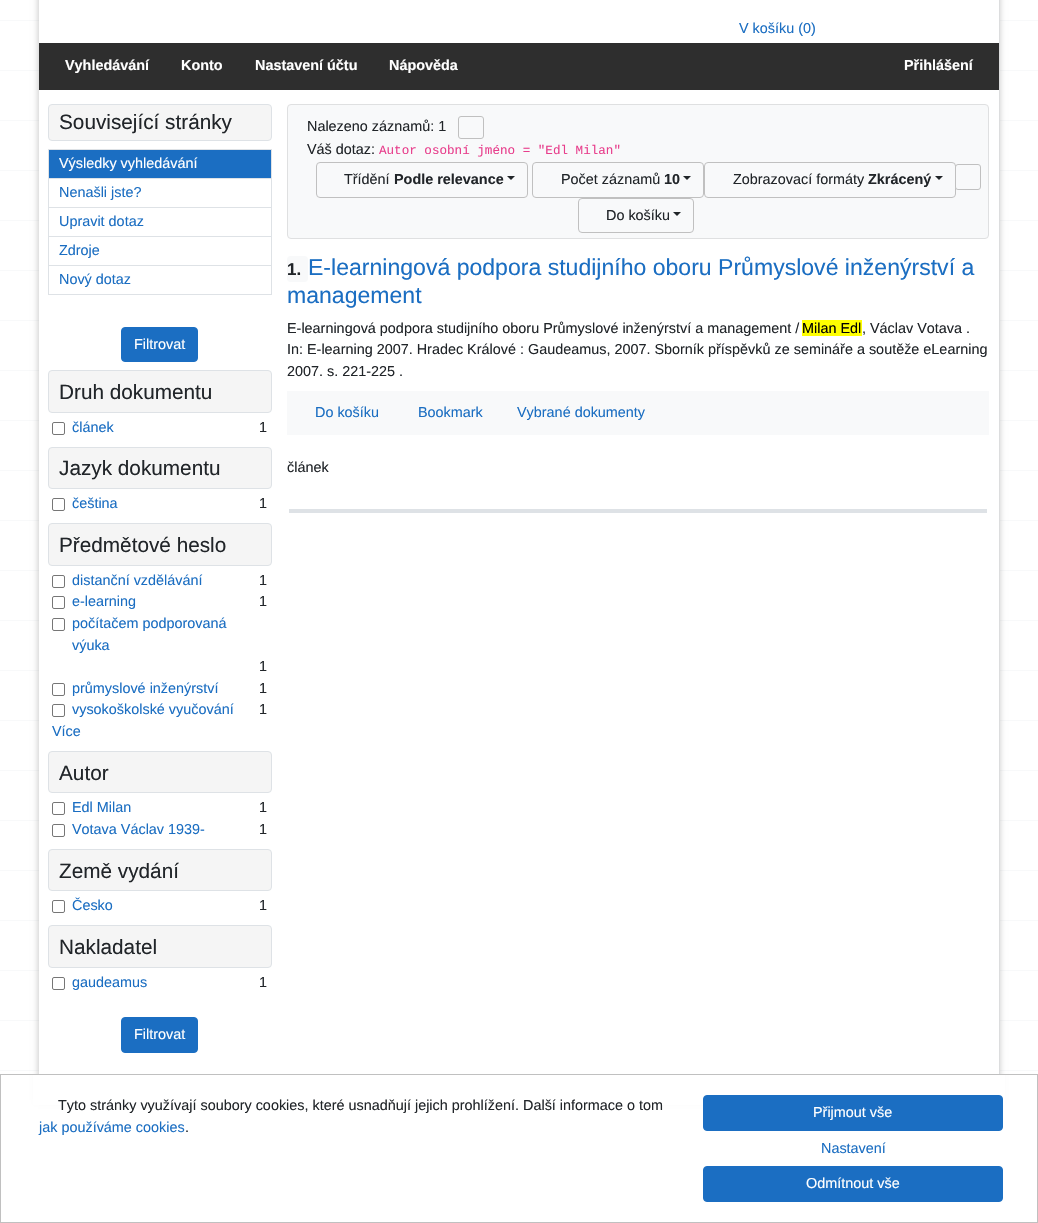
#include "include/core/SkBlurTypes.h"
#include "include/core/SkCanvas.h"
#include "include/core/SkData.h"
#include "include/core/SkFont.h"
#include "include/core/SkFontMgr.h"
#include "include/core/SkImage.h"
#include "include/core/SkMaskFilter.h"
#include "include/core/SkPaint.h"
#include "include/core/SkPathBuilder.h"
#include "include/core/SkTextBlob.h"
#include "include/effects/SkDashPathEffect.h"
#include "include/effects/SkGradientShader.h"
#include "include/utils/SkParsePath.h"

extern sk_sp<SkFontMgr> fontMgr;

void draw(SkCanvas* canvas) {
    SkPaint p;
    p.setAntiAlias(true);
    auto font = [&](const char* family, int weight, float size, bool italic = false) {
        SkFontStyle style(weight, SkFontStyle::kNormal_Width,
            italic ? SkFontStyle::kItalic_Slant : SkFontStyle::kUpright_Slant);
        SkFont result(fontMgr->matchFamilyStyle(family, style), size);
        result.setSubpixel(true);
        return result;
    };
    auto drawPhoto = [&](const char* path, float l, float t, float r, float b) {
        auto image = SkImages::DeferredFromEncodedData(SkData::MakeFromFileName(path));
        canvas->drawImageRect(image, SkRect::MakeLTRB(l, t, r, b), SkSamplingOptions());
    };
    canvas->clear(0xFFFFFFFF);
    drawPhoto("media/1.png", 999, 0, 1000, 1074);
    drawPhoto("media/2.png", 0, 20, 1038, 1071);
    p.setColor(0x33000000);
    p.setMaskFilter(SkMaskFilter::MakeBlur(kNormal_SkBlurStyle, 3));
    canvas->drawRect(SkRect::MakeLTRB(38, -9, 1000, 1100), p);
    p.setMaskFilter(nullptr);
    p.setColor(0xFFFFFFFF);
    canvas->drawRect(SkRect::MakeLTRB(39, 0, 999, 1074), p);
    auto font1 = font("Liberation Sans", 400, 14.4f);
    p.setColor(0xFF1B6EC2);
    canvas->drawString("V košíku (0)", 739, 33, font1, p);
    p.setColor(0xFF2E2E2E);
    canvas->drawRect(SkRect::MakeLTRB(39, 43, 999, 90), p);
    auto font2 = font("Liberation Sans", 700, 14.4f);
    p.setColor(0xFFFFFFFF);
    {
        const struct { const char* s; float x, y; } items[] = {
            {"Vyhledávání", 65, 70},
            {"Konto", 181, 70},
            {"Nastavení účtu", 255, 70},
            {"Nápověda", 389, 70},
            {"Přihlášení", 904, 70},
        };
        for (auto [s, x, y] : items) {
            canvas->drawString(s, x, y, font2, p);
        }
    }
    p.setColor(0xFFF5F5F5);
    canvas->drawRoundRect(SkRect::MakeLTRB(48.5f, 104.5f, 271.5f, 140.5f), 3.5f, 3.5f, p);
    p.setStyle(SkPaint::kStroke_Style);
    p.setStrokeWidth(1);
    p.setColor(0xFFDEE2E6);
    canvas->drawRoundRect(SkRect::MakeLTRB(48.5f, 104.5f, 271.5f, 140.5f), 3.5f, 3.5f, p);
    auto font3 = font("Liberation Sans", 400, 20.75f);
    p.setStyle(SkPaint::kFill_Style);
    p.setColor(0xFF212529);
    canvas->drawString("Související stránky", 59, 129, font3, p);
    {
        const struct { float l, t, r, b; SkColor color; } items[] = {
            {48, 149, 272, 150, 0xFFDEE2E6},
            {271, 149, 272, 178, 0xFFDEE2E6},
            {48, 149, 49, 178, 0xFFDEE2E6},
            {49, 150, 271, 178, 0xFF1B6EC2},
        };
        for (auto [l, t, r, b, color] : items) {
            p.setColor(color);
            canvas->drawRect(SkRect::MakeLTRB(l, t, r, b), p);
        }
    }
    p.setColor(0xFFFFFFFF);
    canvas->drawString("Výsledky vyhledávání", 59, 168, font1, p);
    {
        const struct { float l, t, r, b; SkColor color; } items[] = {
            {48, 178, 272, 179, 0xFFDEE2E6},
            {271, 178, 272, 207, 0xFFDEE2E6},
            {48, 178, 49, 207, 0xFFDEE2E6},
        };
        for (auto [l, t, r, b, color] : items) {
            p.setColor(color);
            canvas->drawRect(SkRect::MakeLTRB(l, t, r, b), p);
        }
    }
    p.setColor(0xFF1B6EC2);
    canvas->drawString("Nenašli jste?", 59, 197, font1, p);
    {
        const struct { float l, t, r, b; SkColor color; } items[] = {
            {48, 207, 272, 208, 0xFFDEE2E6},
            {271, 207, 272, 236, 0xFFDEE2E6},
            {48, 207, 49, 236, 0xFFDEE2E6},
        };
        for (auto [l, t, r, b, color] : items) {
            p.setColor(color);
            canvas->drawRect(SkRect::MakeLTRB(l, t, r, b), p);
        }
    }
    p.setColor(0xFF1B6EC2);
    canvas->drawString("Upravit dotaz", 59, 226, font1, p);
    {
        const struct { float l, t, r, b; SkColor color; } items[] = {
            {48, 236, 272, 237, 0xFFDEE2E6},
            {271, 236, 272, 265, 0xFFDEE2E6},
            {48, 236, 49, 265, 0xFFDEE2E6},
        };
        for (auto [l, t, r, b, color] : items) {
            p.setColor(color);
            canvas->drawRect(SkRect::MakeLTRB(l, t, r, b), p);
        }
    }
    p.setColor(0xFF1B6EC2);
    canvas->drawString("Zdroje", 59, 255, font1, p);
    p.setStyle(SkPaint::kStroke_Style);
    p.setColor(0xFFDEE2E6);
    canvas->drawRect(SkRect::MakeLTRB(48.5f, 265.5f, 271.5f, 294.5f), p);
    p.setStyle(SkPaint::kFill_Style);
    p.setColor(0xFF1B6EC2);
    canvas->drawString("Nový dotaz", 59, 284, font1, p);
    canvas->drawRoundRect(SkRect::MakeLTRB(121.5f, 327.5f, 197.5f, 361.5f), 3.5f, 3.5f, p);
    p.setStyle(SkPaint::kStroke_Style);
    canvas->drawRoundRect(SkRect::MakeLTRB(121.5f, 327.5f, 197.5f, 361.5f), 3.5f, 3.5f, p);
    p.setStyle(SkPaint::kFill_Style);
    p.setColor(0xFFFFFFFF);
    canvas->drawString("Filtrovat", 134, 349, font1, p);
    p.setColor(0xFFF5F5F5);
    canvas->drawRoundRect(SkRect::MakeLTRB(48.5f, 370.5f, 271.5f, 412.5f), 3.5f, 3.5f, p);
    p.setStyle(SkPaint::kStroke_Style);
    p.setColor(0xFFDEE2E6);
    canvas->drawRoundRect(SkRect::MakeLTRB(48.5f, 370.5f, 271.5f, 412.5f), 3.5f, 3.5f, p);
    p.setStyle(SkPaint::kFill_Style);
    p.setColor(0xFF212529);
    canvas->drawString("Druh dokumentu", 59, 399, font3, p);
    p.setStyle(SkPaint::kStroke_Style);
    p.setColor(0xFF767676);
    canvas->drawRoundRect(SkRect::MakeLTRB(52.5f, 422.5f, 64.5f, 434.5f), 1.5f, 1.5f, p);
    p.setStyle(SkPaint::kFill_Style);
    p.setColor(0xFF1B6EC2);
    canvas->drawString("článek", 72, 432, font1, p);
    p.setColor(0xFF212529);
    canvas->drawString("1", 259, 432, font1, p);
    p.setColor(0xFFF5F5F5);
    canvas->drawRoundRect(SkRect::MakeLTRB(48.5f, 447.5f, 271.5f, 488.5f), 3.5f, 3.5f, p);
    p.setStyle(SkPaint::kStroke_Style);
    p.setColor(0xFFDEE2E6);
    canvas->drawRoundRect(SkRect::MakeLTRB(48.5f, 447.5f, 271.5f, 488.5f), 3.5f, 3.5f, p);
    p.setStyle(SkPaint::kFill_Style);
    p.setColor(0xFF212529);
    canvas->drawString("Jazyk dokumentu", 59, 475, font3, p);
    p.setStyle(SkPaint::kStroke_Style);
    p.setColor(0xFF767676);
    canvas->drawRoundRect(SkRect::MakeLTRB(52.5f, 498.5f, 64.5f, 510.5f), 1.5f, 1.5f, p);
    p.setStyle(SkPaint::kFill_Style);
    p.setColor(0xFF1B6EC2);
    canvas->drawString("čeština", 72, 508, font1, p);
    p.setColor(0xFF212529);
    canvas->drawString("1", 259, 508, font1, p);
    p.setColor(0xFFF5F5F5);
    canvas->drawRoundRect(SkRect::MakeLTRB(48.5f, 523.5f, 271.5f, 565.5f), 3.5f, 3.5f, p);
    p.setStyle(SkPaint::kStroke_Style);
    p.setColor(0xFFDEE2E6);
    canvas->drawRoundRect(SkRect::MakeLTRB(48.5f, 523.5f, 271.5f, 565.5f), 3.5f, 3.5f, p);
    p.setStyle(SkPaint::kFill_Style);
    p.setColor(0xFF212529);
    canvas->drawString("Předmětové heslo", 59, 552, font3, p);
    p.setStyle(SkPaint::kStroke_Style);
    p.setColor(0xFF767676);
    canvas->drawRoundRect(SkRect::MakeLTRB(52.5f, 575.5f, 64.5f, 587.5f), 1.5f, 1.5f, p);
    p.setStyle(SkPaint::kFill_Style);
    p.setColor(0xFF1B6EC2);
    canvas->drawString("distanční vzdělávání", 72, 585, font1, p);
    p.setColor(0xFF212529);
    canvas->drawString("1", 259, 585, font1, p);
    p.setStyle(SkPaint::kStroke_Style);
    p.setColor(0xFF767676);
    canvas->drawRoundRect(SkRect::MakeLTRB(52.5f, 596.5f, 64.5f, 608.5f), 1.5f, 1.5f, p);
    p.setStyle(SkPaint::kFill_Style);
    p.setColor(0xFF1B6EC2);
    canvas->drawString("e-learning", 72, 606, font1, p);
    p.setColor(0xFF212529);
    canvas->drawString("1", 259, 606, font1, p);
    p.setStyle(SkPaint::kStroke_Style);
    p.setColor(0xFF767676);
    canvas->drawRoundRect(SkRect::MakeLTRB(52.5f, 618.5f, 64.5f, 630.5f), 1.5f, 1.5f, p);
    p.setStyle(SkPaint::kFill_Style);
    p.setColor(0xFF1B6EC2);
    canvas->drawString("počítačem podporovaná", 72, 628, font1, p);
    canvas->drawString("výuka", 72, 650, font1, p);
    p.setColor(0xFF212529);
    canvas->drawString("1", 259, 671, font1, p);
    p.setStyle(SkPaint::kStroke_Style);
    p.setColor(0xFF767676);
    canvas->drawRoundRect(SkRect::MakeLTRB(52.5f, 683.5f, 64.5f, 695.5f), 1.5f, 1.5f, p);
    p.setStyle(SkPaint::kFill_Style);
    p.setColor(0xFF1B6EC2);
    canvas->drawString("průmyslové inženýrství", 72, 693, font1, p);
    p.setColor(0xFF212529);
    canvas->drawString("1", 259, 693, font1, p);
    p.setStyle(SkPaint::kStroke_Style);
    p.setColor(0xFF767676);
    canvas->drawRoundRect(SkRect::MakeLTRB(52.5f, 704.5f, 64.5f, 716.5f), 1.5f, 1.5f, p);
    p.setStyle(SkPaint::kFill_Style);
    p.setColor(0xFF1B6EC2);
    canvas->drawString("vysokoškolské vyučování", 72, 714, font1, p);
    p.setColor(0xFF212529);
    canvas->drawString("1", 259, 714, font1, p);
    p.setColor(0xFF1B6EC2);
    canvas->drawString("Více", 52, 736, font1, p);
    p.setColor(0xFFF5F5F5);
    canvas->drawRoundRect(SkRect::MakeLTRB(48.5f, 751.5f, 271.5f, 792.5f), 3.5f, 3.5f, p);
    p.setStyle(SkPaint::kStroke_Style);
    p.setColor(0xFFDEE2E6);
    canvas->drawRoundRect(SkRect::MakeLTRB(48.5f, 751.5f, 271.5f, 792.5f), 3.5f, 3.5f, p);
    p.setStyle(SkPaint::kFill_Style);
    p.setColor(0xFF212529);
    canvas->drawString("Autor", 59, 780, font3, p);
    p.setStyle(SkPaint::kStroke_Style);
    p.setColor(0xFF767676);
    canvas->drawRoundRect(SkRect::MakeLTRB(52.5f, 802.5f, 64.5f, 814.5f), 1.5f, 1.5f, p);
    p.setStyle(SkPaint::kFill_Style);
    p.setColor(0xFF1B6EC2);
    canvas->drawString("Edl Milan", 72, 812, font1, p);
    p.setColor(0xFF212529);
    canvas->drawString("1", 259, 812, font1, p);
    p.setStyle(SkPaint::kStroke_Style);
    p.setColor(0xFF767676);
    canvas->drawRoundRect(SkRect::MakeLTRB(52.5f, 824.5f, 64.5f, 836.5f), 1.5f, 1.5f, p);
    p.setStyle(SkPaint::kFill_Style);
    p.setColor(0xFF1B6EC2);
    canvas->drawString("Votava Václav 1939-", 72, 834, font1, p);
    p.setColor(0xFF212529);
    canvas->drawString("1", 259, 834, font1, p);
    p.setColor(0xFFF5F5F5);
    canvas->drawRoundRect(SkRect::MakeLTRB(48.5f, 849.5f, 271.5f, 890.5f), 3.5f, 3.5f, p);
    p.setStyle(SkPaint::kStroke_Style);
    p.setColor(0xFFDEE2E6);
    canvas->drawRoundRect(SkRect::MakeLTRB(48.5f, 849.5f, 271.5f, 890.5f), 3.5f, 3.5f, p);
    p.setStyle(SkPaint::kFill_Style);
    p.setColor(0xFF212529);
    canvas->drawString("Země vydání", 59, 878, font3, p);
    p.setStyle(SkPaint::kStroke_Style);
    p.setColor(0xFF767676);
    canvas->drawRoundRect(SkRect::MakeLTRB(52.5f, 900.5f, 64.5f, 912.5f), 1.5f, 1.5f, p);
    p.setStyle(SkPaint::kFill_Style);
    p.setColor(0xFF1B6EC2);
    canvas->drawString("Česko", 72, 910, font1, p);
    p.setColor(0xFF212529);
    canvas->drawString("1", 259, 910, font1, p);
    p.setColor(0xFFF5F5F5);
    canvas->drawRoundRect(SkRect::MakeLTRB(48.5f, 925.5f, 271.5f, 967.5f), 3.5f, 3.5f, p);
    p.setStyle(SkPaint::kStroke_Style);
    p.setColor(0xFFDEE2E6);
    canvas->drawRoundRect(SkRect::MakeLTRB(48.5f, 925.5f, 271.5f, 967.5f), 3.5f, 3.5f, p);
    p.setStyle(SkPaint::kFill_Style);
    p.setColor(0xFF212529);
    canvas->drawString("Nakladatel", 59, 954, font3, p);
    p.setStyle(SkPaint::kStroke_Style);
    p.setColor(0xFF767676);
    canvas->drawRoundRect(SkRect::MakeLTRB(52.5f, 977.5f, 64.5f, 989.5f), 1.5f, 1.5f, p);
    p.setStyle(SkPaint::kFill_Style);
    p.setColor(0xFF1B6EC2);
    canvas->drawString("gaudeamus", 72, 987, font1, p);
    p.setColor(0xFF212529);
    canvas->drawString("1", 259, 987, font1, p);
    p.setColor(0xFF1B6EC2);
    canvas->drawRoundRect(SkRect::MakeLTRB(121.5f, 1017.5f, 197.5f, 1052.5f), 3.5f, 3.5f, p);
    p.setStyle(SkPaint::kStroke_Style);
    canvas->drawRoundRect(SkRect::MakeLTRB(121.5f, 1017.5f, 197.5f, 1052.5f), 3.5f, 3.5f, p);
    p.setStyle(SkPaint::kFill_Style);
    p.setColor(0xFFFFFFFF);
    canvas->drawString("Filtrovat", 134, 1039, font1, p);
    p.setColor(0xFFF8F9FA);
    canvas->drawRoundRect(SkRect::MakeLTRB(287.5f, 104.5f, 988.5f, 238.5f), 3.5f, 3.5f, p);
    p.setStyle(SkPaint::kStroke_Style);
    p.setColor(0xFFDFE0E1);
    canvas->drawRoundRect(SkRect::MakeLTRB(287.5f, 104.5f, 988.5f, 238.5f), 3.5f, 3.5f, p);
    p.setStyle(SkPaint::kFill_Style);
    p.setColor(0xFF212529);
    canvas->drawString("Nalezeno záznamů: 1", 307, 131, font1, p);
    p.setStyle(SkPaint::kStroke_Style);
    p.setColor(0xFFC0C0C0);
    canvas->drawRoundRect(SkRect::MakeLTRB(458.5f, 116.5f, 483.5f, 138.5f), 2.5f, 2.5f, p);
    p.setStyle(SkPaint::kFill_Style);
    p.setColor(0xFF212529);
    canvas->drawString("Váš dotaz:", 307, 154, font1, p);
    auto font4 = font("Liberation Mono", 400, 12.6f);
    p.setColor(0xFFE83E8C);
    canvas->drawString("Autor osobní jméno = \"Edl Milan\"", 379, 154, font4, p);
    p.setStyle(SkPaint::kStroke_Style);
    p.setColor(0xFFC0C0C0);
    canvas->drawRoundRect(SkRect::MakeLTRB(316.5f, 162.5f, 527.5f, 197.5f), 3.5f, 3.5f, p);
    p.setStyle(SkPaint::kFill_Style);
    p.setColor(0xFF212529);
    canvas->drawString("Třídění", 344, 184, font1, p);
    canvas->drawString("Podle relevance", 394, 184, font2, p);
    canvas->drawPath(SkPathBuilder().moveTo(507, 176).lineTo(515, 176).lineTo(511, 180).close().detach(), p);
    p.setStyle(SkPaint::kStroke_Style);
    p.setColor(0xFFC0C0C0);
    canvas->drawRoundRect(SkRect::MakeLTRB(532.5f, 162.5f, 703.5f, 197.5f), 3.5f, 3.5f, p);
    p.setStyle(SkPaint::kFill_Style);
    p.setColor(0xFF212529);
    canvas->drawString("Počet záznamů", 561, 184, font1, p);
    canvas->drawString("10", 664, 184, font2, p);
    canvas->drawPath(SkPathBuilder().moveTo(683, 176).lineTo(691, 176).lineTo(687, 180).close().detach(), p);
    p.setStyle(SkPaint::kStroke_Style);
    p.setColor(0xFFC0C0C0);
    canvas->drawRoundRect(SkRect::MakeLTRB(704.5f, 162.5f, 955.5f, 197.5f), 3.5f, 3.5f, p);
    p.setStyle(SkPaint::kFill_Style);
    p.setColor(0xFF212529);
    canvas->drawString("Zobrazovací formáty", 733, 184, font1, p);
    canvas->drawString("Zkrácený", 868, 184, font2, p);
    canvas->drawPath(SkPathBuilder().moveTo(935, 176).lineTo(943, 176).lineTo(939, 180).close().detach(), p);
    p.setStyle(SkPaint::kStroke_Style);
    p.setColor(0xFFC0C0C0);
    canvas->drawRoundRect(SkRect::MakeLTRB(578.5f, 198.5f, 693.5f, 232.5f), 3.5f, 3.5f, p);
    p.setStyle(SkPaint::kFill_Style);
    p.setColor(0xFF212529);
    canvas->drawString("Do košíku", 606, 220, font1, p);
    canvas->drawPath(SkPathBuilder().moveTo(673, 212).lineTo(681, 212).lineTo(677, 216).close().detach(), p);
    p.setColor(0xFFF8F9FA);
    canvas->drawRoundRect(SkRect::MakeLTRB(955.5f, 164.5f, 980.5f, 189.5f), 2.5f, 2.5f, p);
    p.setStyle(SkPaint::kStroke_Style);
    p.setColor(0xFFC0C0C0);
    canvas->drawRoundRect(SkRect::MakeLTRB(955.5f, 164.5f, 980.5f, 189.5f), 2.5f, 2.5f, p);
    p.setStyle(SkPaint::kFill_Style);
    p.setColor(0xFFDEE2E6);
    canvas->drawRect(SkRect::MakeLTRB(289, 509, 987, 513), p);
    p.setColor(0xFFF8F9FA);
    canvas->drawRoundRect(SkRect::MakeLTRB(287, 256, 308, 282), 4, 4, p);
    auto font5 = font("Liberation Sans", 700, 17);
    p.setColor(0xFF212529);
    canvas->drawString("1.", 287, 275, font5, p);
    auto font6 = font("Liberation Sans", 400, 23.05f);
    p.setColor(0xFF1B6EC2);
    canvas->drawString("E-learningová podpora studijního oboru Průmyslové inženýrství a", 308, 275, font6, p);
    canvas->drawString("management", 287, 303, font6, p);
    p.setColor(0xFF212529);
    canvas->drawString("E-learningová podpora studijního oboru Průmyslové inženýrství a management /", 287, 333, font1, p);
    p.setColor(0xFFFFFF00);
    canvas->drawRect(SkRect::MakeLTRB(802, 320, 862, 336), p);
    p.setColor(0xFF000000);
    canvas->drawString("Milan Edl", 802, 333, font1, p);
    p.setColor(0xFF212529);
    {
        const struct { const char* s; float x, y; } items[] = {
            {", Václav Votava .", 862, 333},
            {"In: E-learning 2007. Hradec Králové : Gaudeamus, 2007. Sborník příspěvků ze semináře a soutěže eLearning", 287, 354},
            {"2007. s. 221-225 .", 287, 376},
        };
        for (auto [s, x, y] : items) {
            canvas->drawString(s, x, y, font1, p);
        }
    }
    p.setColor(0xFFF8F9FA);
    canvas->drawRect(SkRect::MakeLTRB(287, 391, 989, 435), p);
    p.setColor(0xFF1B6EC2);
    {
        const struct { const char* s; float x, y; } items[] = {
            {"Do košíku", 315, 417},
            {"Bookmark", 418, 417},
            {"Vybrané dokumenty", 517, 417},
        };
        for (auto [s, x, y] : items) {
            canvas->drawString(s, x, y, font1, p);
        }
    }
    p.setColor(0xFF212529);
    canvas->drawString("článek", 287, 472, font1, p);
    p.setColor(0xFFFFFFFF);
    canvas->drawRect(SkRect::MakeLTRB(33, 1075, 1005, 1105), p);
    p.setStyle(SkPaint::kStroke_Style);
    p.setColor(0xFFC0C0C0);
    canvas->drawRect(SkRect::MakeLTRB(0.5f, 1074.5f, 1037.5f, 1222.5f), p);
    p.setStyle(SkPaint::kFill_Style);
    p.setColor(0xFF212529);
    canvas->drawString("Tyto stránky využívají soubory cookies, které usnadňují jejich prohlížení. Další informace o tom", 58, 1110, font1, p);
    p.setColor(0xFF1B6EC2);
    canvas->drawString("jak používáme cookies", 39, 1132, font1, p);
    p.setColor(0xFF212529);
    canvas->drawString(".", 185, 1132, font1, p);
    p.setColor(0xFF1B6EC2);
    canvas->drawRoundRect(SkRect::MakeLTRB(703.5f, 1095.5f, 1002.5f, 1130.5f), 3.5f, 3.5f, p);
    p.setStyle(SkPaint::kStroke_Style);
    canvas->drawRoundRect(SkRect::MakeLTRB(703.5f, 1095.5f, 1002.5f, 1130.5f), 3.5f, 3.5f, p);
    p.setStyle(SkPaint::kFill_Style);
    p.setColor(0xFFFFFFFF);
    canvas->drawString("Přijmout vše", 813, 1117, font1, p);
    p.setColor(0xFF1B6EC2);
    canvas->drawString("Nastavení", 821, 1153, font1, p);
    canvas->drawRoundRect(SkRect::MakeLTRB(703.5f, 1166.5f, 1002.5f, 1201.5f), 3.5f, 3.5f, p);
    p.setStyle(SkPaint::kStroke_Style);
    canvas->drawRoundRect(SkRect::MakeLTRB(703.5f, 1166.5f, 1002.5f, 1201.5f), 3.5f, 3.5f, p);
    p.setStyle(SkPaint::kFill_Style);
    p.setColor(0xFFFFFFFF);
    canvas->drawString("Odmítnout vše", 806, 1188, font1, p);
}
